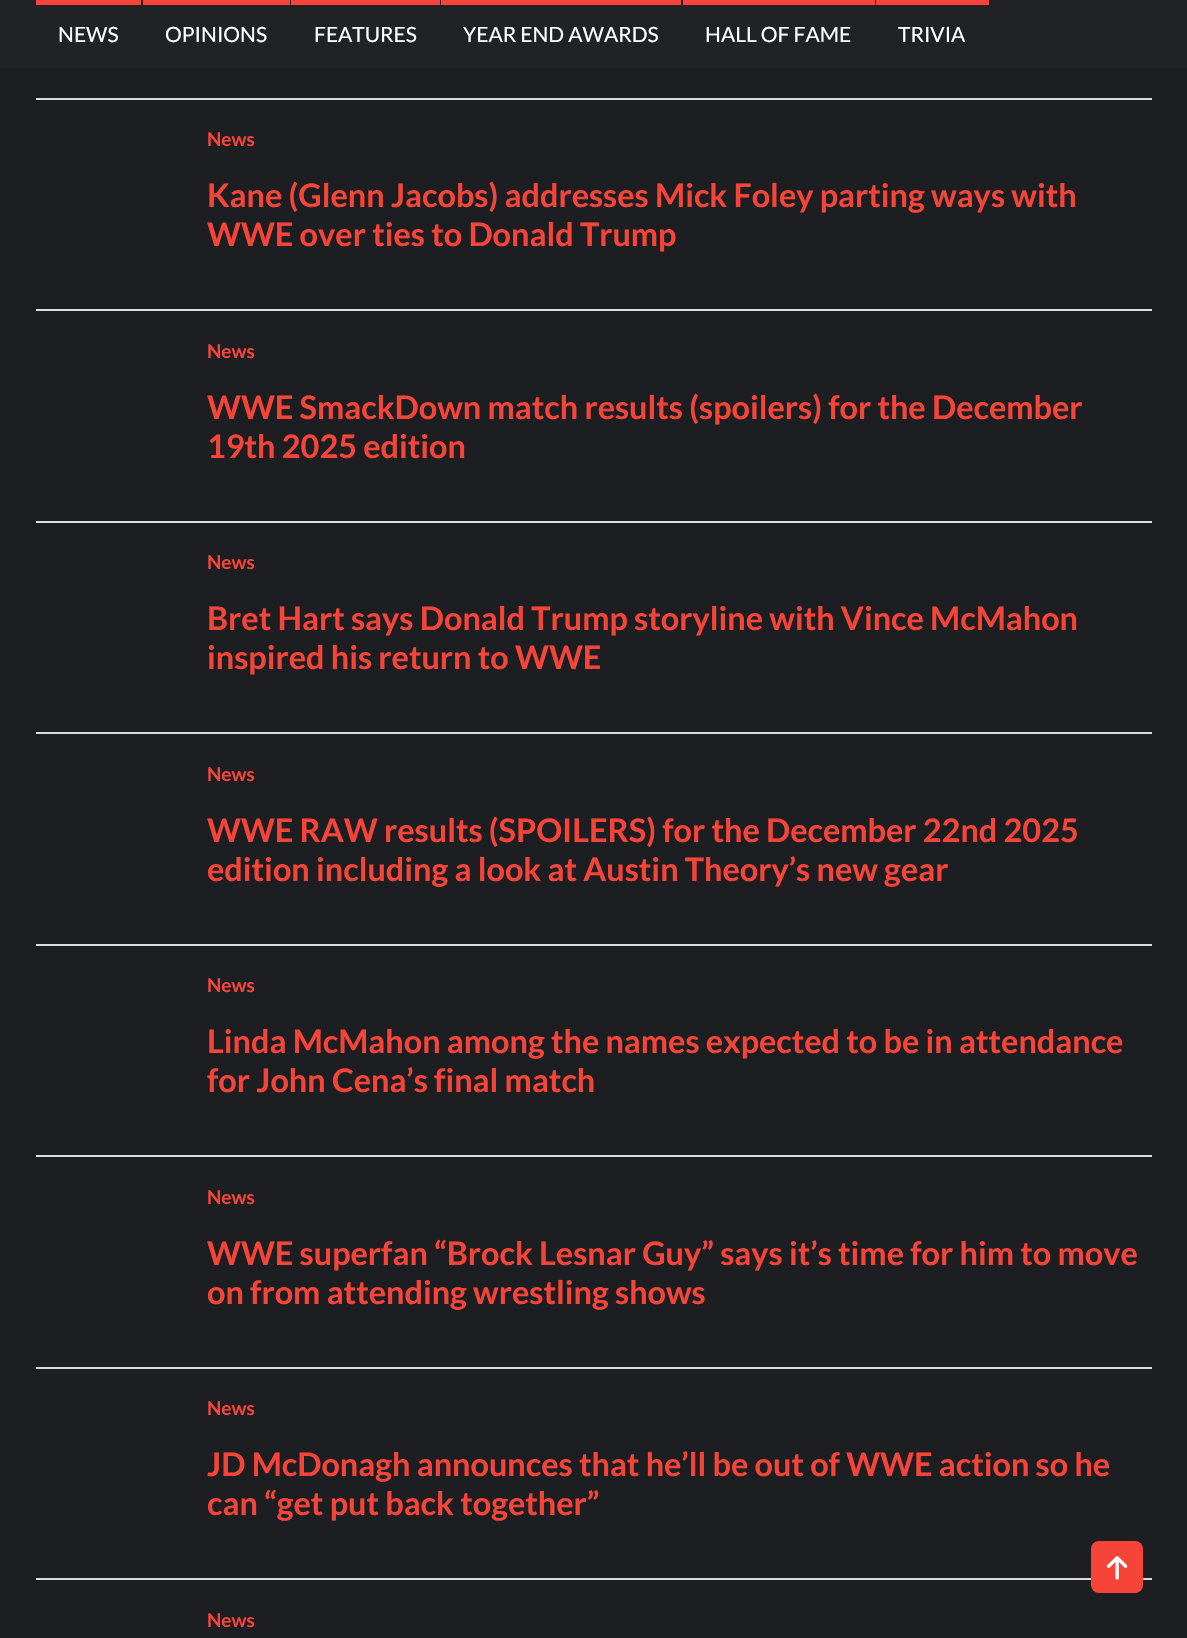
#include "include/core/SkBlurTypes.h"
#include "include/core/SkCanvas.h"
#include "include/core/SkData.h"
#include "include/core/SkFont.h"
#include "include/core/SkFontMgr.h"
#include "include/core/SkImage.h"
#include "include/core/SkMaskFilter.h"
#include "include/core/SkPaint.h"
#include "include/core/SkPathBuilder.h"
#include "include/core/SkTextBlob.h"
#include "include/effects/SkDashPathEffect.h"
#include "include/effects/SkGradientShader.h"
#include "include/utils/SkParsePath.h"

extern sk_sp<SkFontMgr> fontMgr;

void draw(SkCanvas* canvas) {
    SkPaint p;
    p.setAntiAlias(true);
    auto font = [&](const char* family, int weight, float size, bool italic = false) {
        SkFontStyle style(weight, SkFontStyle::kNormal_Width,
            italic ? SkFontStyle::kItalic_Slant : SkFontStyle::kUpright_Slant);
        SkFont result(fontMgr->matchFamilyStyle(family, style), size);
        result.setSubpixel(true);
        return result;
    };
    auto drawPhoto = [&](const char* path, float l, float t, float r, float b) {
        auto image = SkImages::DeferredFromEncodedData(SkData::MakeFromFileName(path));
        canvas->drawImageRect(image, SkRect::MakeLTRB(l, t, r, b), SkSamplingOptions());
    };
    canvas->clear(0xFF1D1E22);
    p.setColor(0xFF212226);
    canvas->drawRect(SkRect::MakeLTRB(0, 0, 1187, 68), p);
    p.setColor(0xFFF64538);
    canvas->drawRect(SkRect::MakeLTRB(36, 0, 141, 5), p);
    auto font1 = font("Lato", 400, 21);
    p.setColor(0xFFFFFFFF);
    canvas->drawString("NEWS", 58, 42, font1, p);
    p.setColor(0xFFF64538);
    canvas->drawRect(SkRect::MakeLTRB(143, 0, 290, 5), p);
    p.setColor(0xFFFFFFFF);
    canvas->drawString("OPINIONS", 165, 42, font1, p);
    p.setColor(0xFFF64538);
    canvas->drawRect(SkRect::MakeLTRB(291, 0, 440, 5), p);
    p.setColor(0xFFFFFFFF);
    canvas->drawString("FEATURES", 314, 42, font1, p);
    p.setColor(0xFFF64538);
    canvas->drawRect(SkRect::MakeLTRB(441, 0, 681, 5), p);
    p.setColor(0xFFFFFFFF);
    canvas->drawString("YEAR END AWARDS", 463, 42, font1, p);
    p.setColor(0xFFF64538);
    canvas->drawRect(SkRect::MakeLTRB(683, 0, 875, 5), p);
    p.setColor(0xFFFFFFFF);
    canvas->drawString("HALL OF FAME", 705, 42, font1, p);
    p.setColor(0xFFF64538);
    canvas->drawRect(SkRect::MakeLTRB(876, 0, 989, 5), p);
    p.setColor(0xFFFFFFFF);
    canvas->drawString("TRIVIA", 898, 42, font1, p);
    p.setColor(0xFFDDDDDD);
    canvas->drawRect(SkRect::MakeLTRB(36, 98, 1152, 100), p);
    canvas->drawRect(SkRect::MakeLTRB(36, 309, 1152, 311), p);
    auto font2 = font("Lato", 700, 19);
    p.setColor(0xFFF64538);
    canvas->drawString("News", 207, 146, font2, p);
    auto font3 = font("Lato", 700, 32.4f);
    canvas->drawString("Kane (Glenn Jacobs) addresses Mick Foley parting ways with", 207, 207, font3, p);
    canvas->drawString("WWE over ties to Donald Trump", 207, 246, font3, p);
    p.setColor(0xFFDDDDDD);
    canvas->drawRect(SkRect::MakeLTRB(36, 521, 1152, 523), p);
    p.setColor(0xFFF64538);
    canvas->drawString("News", 207, 358, font2, p);
    canvas->drawString("WWE SmackDown match results (spoilers) for the December", 207, 419, font3, p);
    canvas->drawString("19th 2025 edition", 207, 458, font3, p);
    p.setColor(0xFFDDDDDD);
    canvas->drawRect(SkRect::MakeLTRB(36, 732, 1152, 734), p);
    p.setColor(0xFFF64538);
    canvas->drawString("News", 207, 569, font2, p);
    canvas->drawString("Bret Hart says Donald Trump storyline with Vince McMahon", 207, 630, font3, p);
    canvas->drawString("inspired his return to WWE", 207, 669, font3, p);
    p.setColor(0xFFDDDDDD);
    canvas->drawRect(SkRect::MakeLTRB(36, 944, 1152, 946), p);
    p.setColor(0xFFF64538);
    canvas->drawString("News", 207, 781, font2, p);
    canvas->drawString("WWE RAW results (SPOILERS) for the December 22nd 2025", 207, 842, font3, p);
    canvas->drawString("edition including a look at Austin Theory’s new gear", 207, 881, font3, p);
    p.setColor(0xFFDDDDDD);
    canvas->drawRect(SkRect::MakeLTRB(36, 1155, 1152, 1157), p);
    p.setColor(0xFFF64538);
    canvas->drawString("News", 207, 992, font2, p);
    canvas->drawString("Linda McMahon among the names expected to be in attendance", 207, 1053, font3, p);
    canvas->drawString("for John Cena’s final match", 207, 1092, font3, p);
    p.setColor(0xFFDDDDDD);
    canvas->drawRect(SkRect::MakeLTRB(36, 1367, 1152, 1369), p);
    p.setColor(0xFFF64538);
    canvas->drawString("News", 207, 1204, font2, p);
    canvas->drawString("WWE superfan “Brock Lesnar Guy” says it’s time for him to move", 207, 1265, font3, p);
    canvas->drawString("on from attending wrestling shows", 207, 1304, font3, p);
    p.setColor(0xFFDDDDDD);
    canvas->drawRect(SkRect::MakeLTRB(36, 1578, 1152, 1580), p);
    p.setColor(0xFFF64538);
    canvas->drawString("News", 207, 1415, font2, p);
    canvas->drawString("JD McDonagh announces that he’ll be out of WWE action so he", 207, 1476, font3, p);
    canvas->drawString("can “get put back together”", 207, 1515, font3, p);
    canvas->drawString("News", 207, 1627, font2, p);
    canvas->drawRoundRect(SkRect::MakeLTRB(1091, 1541, 1143, 1593), 8, 8, p);
    drawPhoto("media/1.png", 1107, 1556, 1128, 1580);
}
